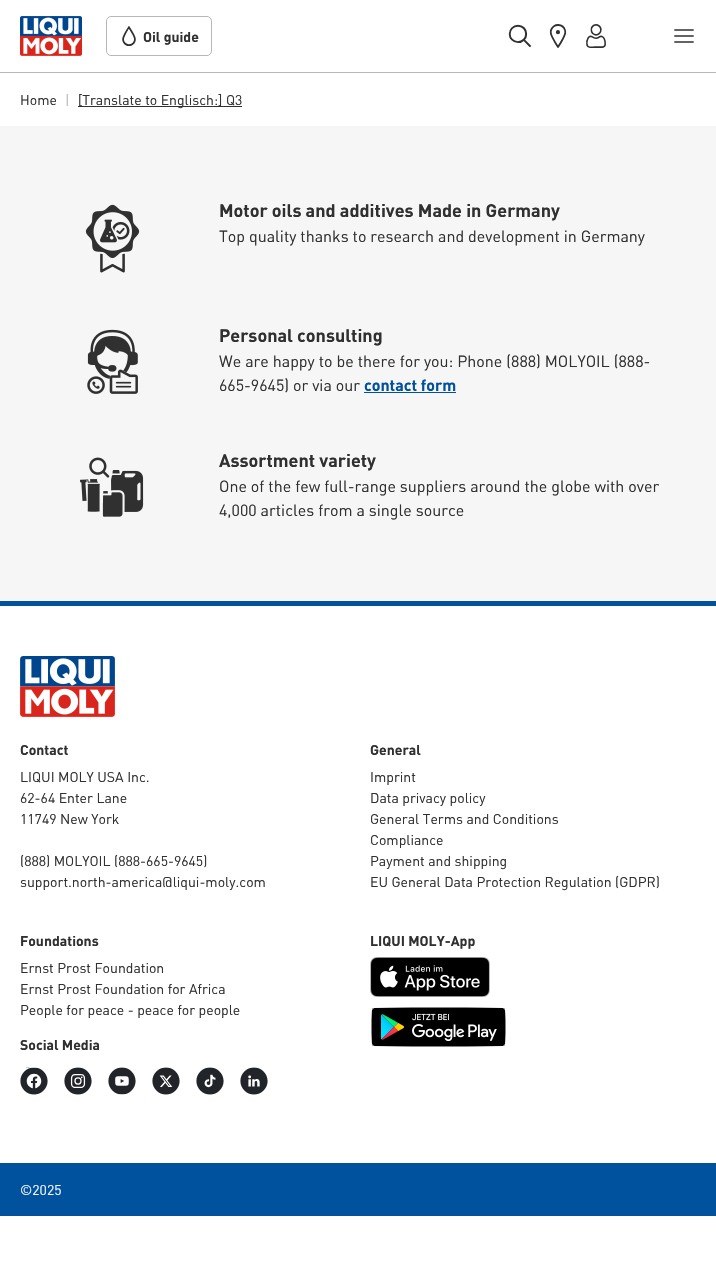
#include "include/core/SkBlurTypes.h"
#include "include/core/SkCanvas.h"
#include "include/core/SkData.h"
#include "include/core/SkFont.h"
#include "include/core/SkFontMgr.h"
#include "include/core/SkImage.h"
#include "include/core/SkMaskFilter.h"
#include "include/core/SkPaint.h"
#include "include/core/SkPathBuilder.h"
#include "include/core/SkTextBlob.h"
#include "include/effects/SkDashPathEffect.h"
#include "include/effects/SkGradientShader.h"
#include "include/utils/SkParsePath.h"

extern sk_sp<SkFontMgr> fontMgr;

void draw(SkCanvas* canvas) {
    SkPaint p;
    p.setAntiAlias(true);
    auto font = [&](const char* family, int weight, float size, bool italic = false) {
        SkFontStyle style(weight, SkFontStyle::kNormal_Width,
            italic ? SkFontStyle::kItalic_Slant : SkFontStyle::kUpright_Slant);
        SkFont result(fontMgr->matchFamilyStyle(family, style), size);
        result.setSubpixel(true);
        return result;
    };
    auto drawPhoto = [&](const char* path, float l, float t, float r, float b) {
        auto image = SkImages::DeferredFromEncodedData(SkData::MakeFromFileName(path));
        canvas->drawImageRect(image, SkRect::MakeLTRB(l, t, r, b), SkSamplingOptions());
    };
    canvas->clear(0xFFFFFFFF);
    p.setColor(0xFFB7B7B7);
    canvas->drawRect(SkRect::MakeLTRB(0, 72, 716, 73), p);
    drawPhoto("media/1.png", 20, 16, 82, 56);
    p.setStyle(SkPaint::kStroke_Style);
    p.setStrokeWidth(1);
    canvas->drawRoundRect(SkRect::MakeLTRB(106.5f, 16.5f, 211.5f, 55.5f), 4.5f, 4.5f, p);
    drawPhoto("media/2.png", 122, 26, 136, 46);
    auto font1 = font("DIN", 700, 14);
    p.setStyle(SkPaint::kFill_Style);
    p.setColor(0xFF303030);
    canvas->drawString("Oil guide", 143, 42, font1, p);
    drawPhoto("media/3.png", 508, 24, 532, 48);
    drawPhoto("media/4.png", 549, 24, 567, 48);
    drawPhoto("media/5.png", 586, 24, 606, 48);
    drawPhoto("media/6.png", 674, 29, 694, 43);
    auto font2 = font("DIN", 400, 14);
    canvas->drawString("Home", 20, 105, font2, p);
    p.setColor(0xFFB7B7B7);
    canvas->drawString("|", 65, 105, font2, p);
    p.setColor(0xFF303030);
    canvas->drawRect(SkRect::MakeLTRB(78, 106, 242, 107), p);
    canvas->drawString("[Translate to Englisch:] Q3", 78, 105, font2, p);
    p.setColor(0xFFF6F6F6);
    canvas->drawRect(SkRect::MakeLTRB(0, 126, 716, 601), p);
    drawPhoto("media/7.png", 85, 204, 140, 273);
    auto font3 = font("DIN", 700, 18);
    p.setColor(0xFF303030);
    canvas->drawString("Motor oils and additives Made in Germany", 219, 217, font3, p);
    auto font4 = font("DIN", 400, 16);
    canvas->drawString("Top quality thanks to research and development in Germany", 219, 242, font4, p);
    drawPhoto("media/8.png", 87, 329, 138, 394);
    canvas->drawString("Personal consulting", 219, 342, font3, p);
    canvas->drawString("We are happy to be there for you: Phone (888) MOLYOIL (888-", 219, 367, font4, p);
    canvas->drawString("665-9645) or via our", 219, 391, font4, p);
    auto font5 = font("DIN", 700, 16);
    p.setColor(0xFF00519E);
    canvas->drawString("contact form", 364, 391, font5, p);
    canvas->drawRect(SkRect::MakeLTRB(364, 392, 456, 393), p);
    drawPhoto("media/9.png", 80, 457, 144, 517);
    p.setColor(0xFF303030);
    canvas->drawString("Assortment variety", 219, 467, font3, p);
    canvas->drawString("One of the few full-range suppliers around the globe with over", 219, 492, font4, p);
    canvas->drawString("4,000 articles from a single source", 219, 516, font4, p);
    p.setColor(0xFF00519E);
    canvas->drawRect(SkRect::MakeLTRB(0, 601, 716, 606), p);
    drawPhoto("media/10.png", 20, 656, 115, 717);
    p.setColor(0xFF303030);
    canvas->drawString("Contact", 20, 755, font1, p);
    {
        const struct { const char* s; float x, y; } items[] = {
            {"LIQUI MOLY USA Inc.", 20, 782},
            {"62-64 Enter Lane", 20, 803},
            {"11749 New York", 20, 824},
            {"(888) MOLYOIL (888-665-9645)", 20, 866},
            {"support.north-america@liqui-moly.com", 20, 887},
        };
        for (auto [s, x, y] : items) {
            canvas->drawString(s, x, y, font2, p);
        }
    }
    canvas->drawString("General", 370, 755, font1, p);
    {
        const struct { const char* s; float x, y; } items[] = {
            {"Imprint", 370, 782},
            {"Data privacy policy", 370, 803},
            {"General Terms and Conditions", 370, 824},
            {"Compliance", 370, 845},
            {"Payment and shipping", 370, 866},
            {"EU General Data Protection Regulation (GDPR)", 370, 887},
        };
        for (auto [s, x, y] : items) {
            canvas->drawString(s, x, y, font2, p);
        }
    }
    canvas->drawString("Foundations", 20, 946, font1, p);
    {
        const struct { const char* s; float x, y; } items[] = {
            {"Ernst Prost Foundation", 20, 973},
            {"Ernst Prost Foundation for Africa", 20, 994},
            {"People for peace - peace for people", 20, 1015},
        };
        for (auto [s, x, y] : items) {
            canvas->drawString(s, x, y, font2, p);
        }
    }
    canvas->drawString("Social Media", 20, 1050, font1, p);
    drawPhoto("media/11.png", 20, 1067, 48, 1095);
    drawPhoto("media/12.png", 64, 1067, 92, 1095);
    drawPhoto("media/13.png", 108, 1067, 136, 1095);
    drawPhoto("media/14.png", 152, 1067, 180, 1095);
    drawPhoto("media/15.png", 196, 1067, 224, 1095);
    drawPhoto("media/16.png", 240, 1067, 268, 1095);
    canvas->drawString("LIQUI MOLY-App", 370, 946, font1, p);
    drawPhoto("media/17.png", 370, 957, 490, 997);
    drawPhoto("media/18.png", 371, 1007, 506, 1047);
    p.setColor(0xFF00519E);
    canvas->drawRect(SkRect::MakeLTRB(0, 1163, 716, 1216), p);
    p.setColor(0xFFF6F6F6);
    canvas->drawString("©2025", 20, 1195, font2, p);
}
